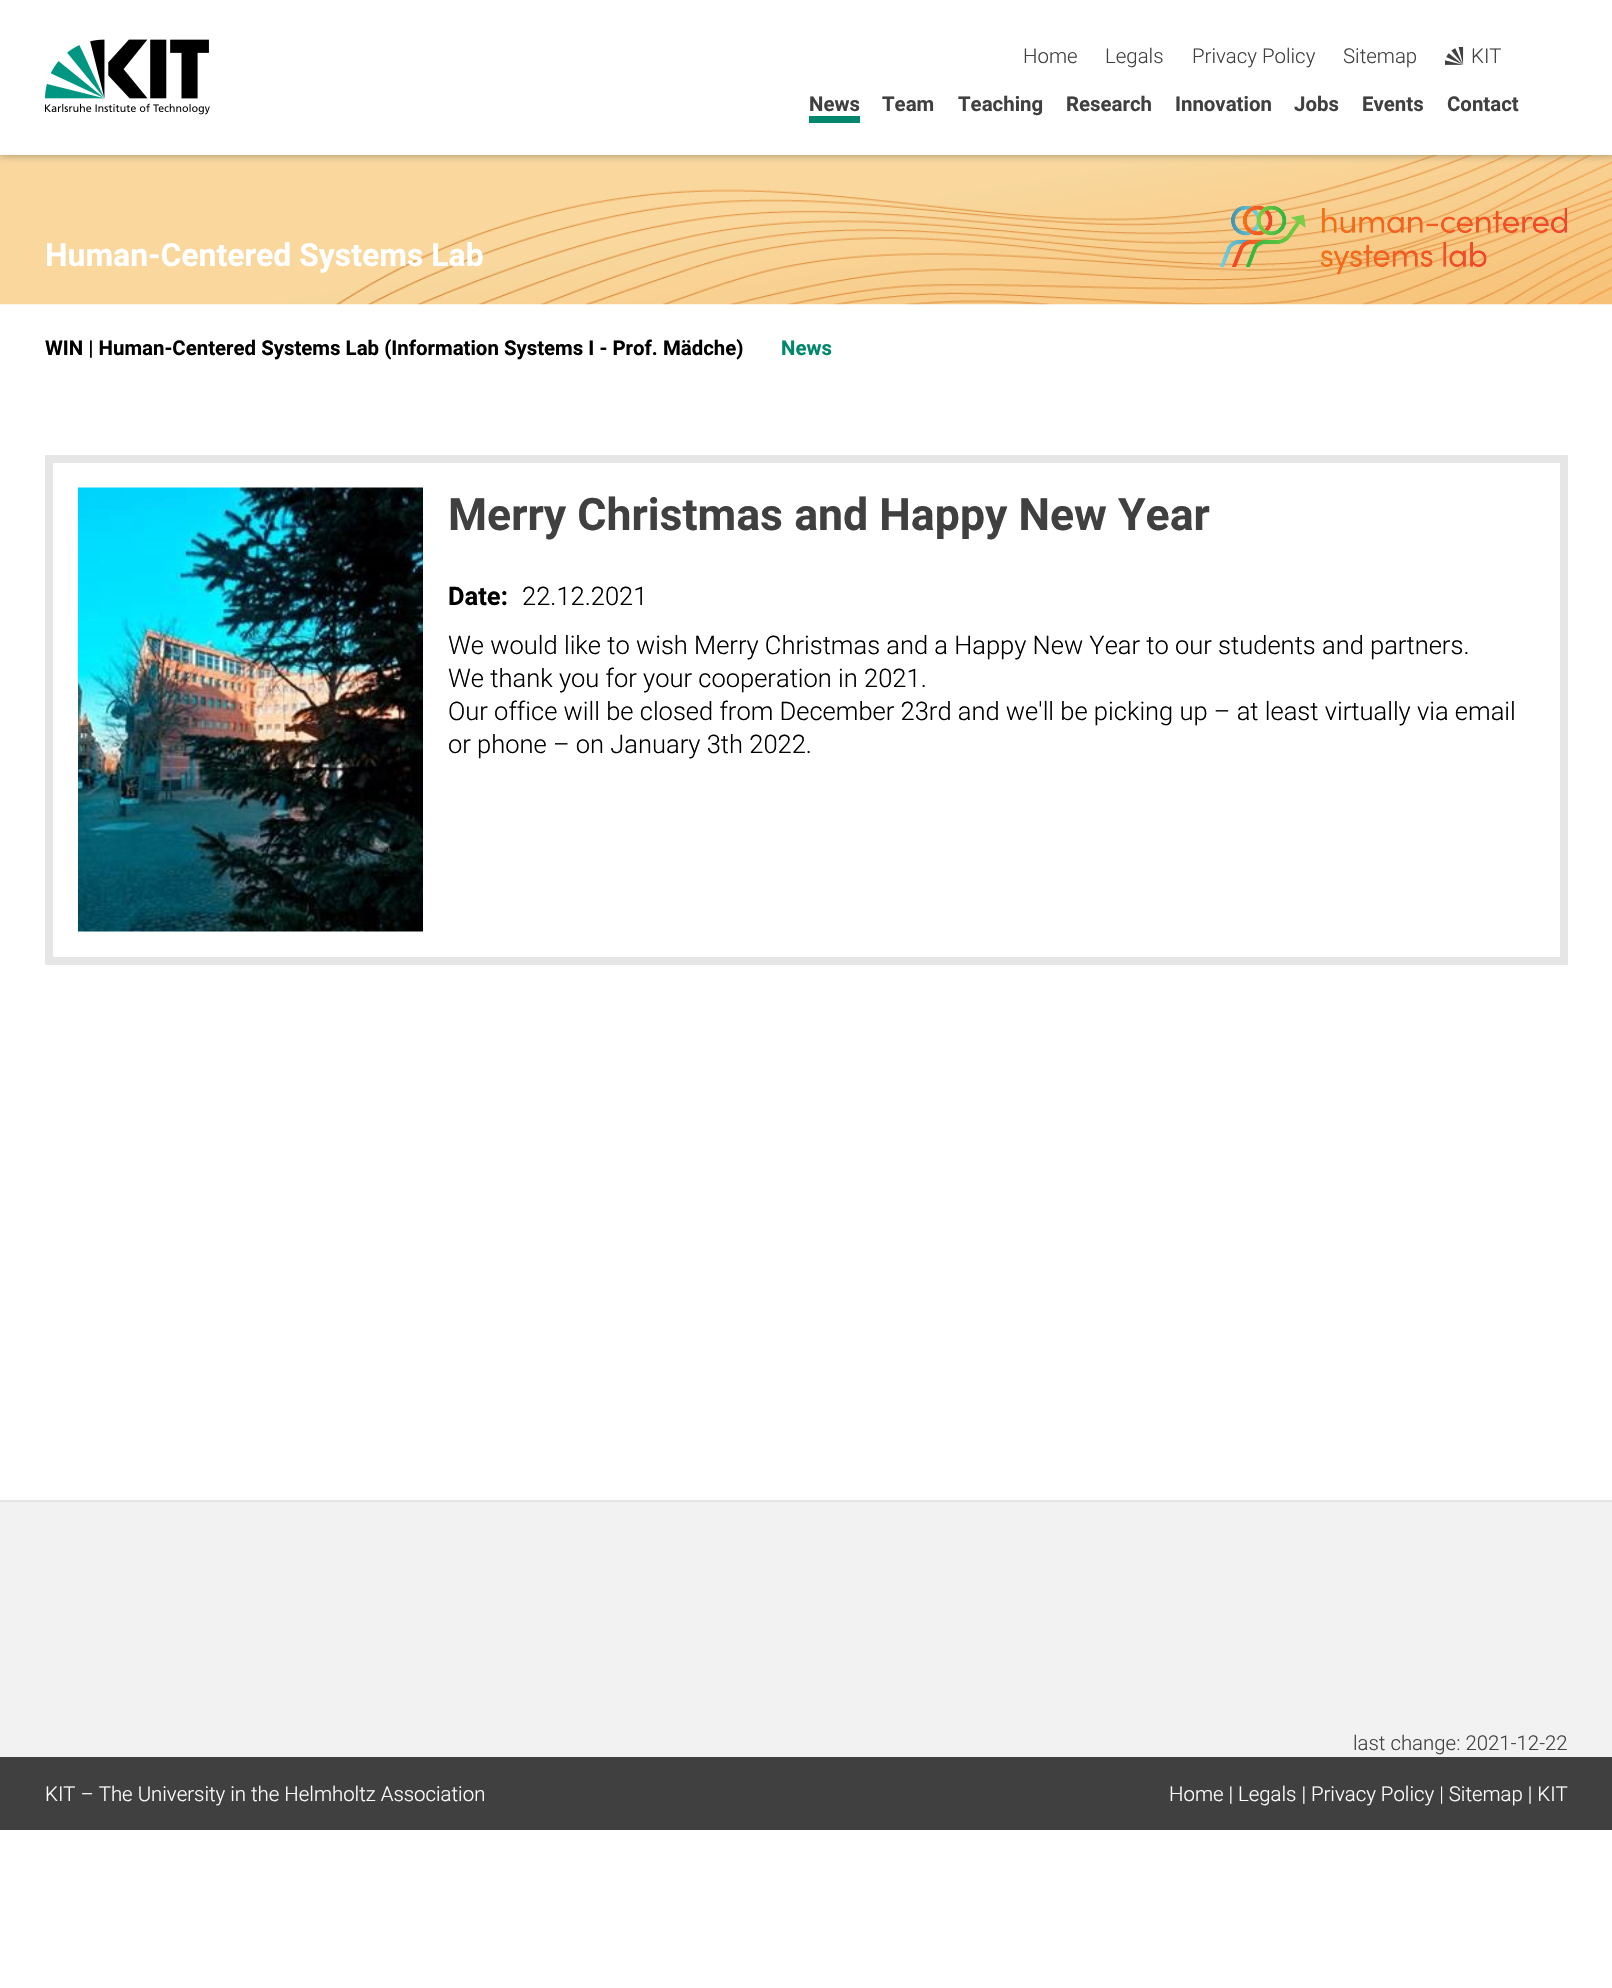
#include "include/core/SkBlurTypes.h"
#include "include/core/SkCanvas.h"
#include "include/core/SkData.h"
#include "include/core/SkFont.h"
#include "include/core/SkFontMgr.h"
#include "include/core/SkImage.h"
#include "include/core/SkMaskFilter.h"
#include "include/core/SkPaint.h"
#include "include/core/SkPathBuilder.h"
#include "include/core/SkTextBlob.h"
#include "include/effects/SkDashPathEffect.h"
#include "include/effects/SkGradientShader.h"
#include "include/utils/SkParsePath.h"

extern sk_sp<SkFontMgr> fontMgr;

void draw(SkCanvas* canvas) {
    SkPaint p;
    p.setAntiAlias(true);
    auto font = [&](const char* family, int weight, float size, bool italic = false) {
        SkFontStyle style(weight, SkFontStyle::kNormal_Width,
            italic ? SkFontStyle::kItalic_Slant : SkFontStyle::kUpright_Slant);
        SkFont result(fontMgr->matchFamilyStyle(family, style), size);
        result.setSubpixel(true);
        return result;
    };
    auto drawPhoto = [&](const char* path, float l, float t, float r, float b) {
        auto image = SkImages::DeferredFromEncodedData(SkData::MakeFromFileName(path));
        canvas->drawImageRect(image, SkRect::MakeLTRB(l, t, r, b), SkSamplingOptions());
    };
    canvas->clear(0xFFFFFFFF);
    drawPhoto("media/3.png", 0, 155, 1612, 305);
    p.setColor(0x80404040);
    p.setMaskFilter(SkMaskFilter::MakeBlur(kNormal_SkBlurStyle, 4));
    canvas->drawRect(SkRect::MakeLTRB(0, 0, 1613, 155), p);
    p.setMaskFilter(nullptr);
    p.setColor(0xFFFFFFFF);
    canvas->drawRect(SkRect::MakeLTRB(0, 0, 1612, 155), p);
    drawPhoto("media/1.png", 45, 39, 210, 115);
    auto font1 = font("Roboto", 300, 20.4f);
    p.setColor(0xFF404040);
    {
        const struct { const char* s; float x, y; } items[] = {
            {"Home", 1023, 63},
            {"Legals", 1105, 63},
            {"Privacy Policy", 1192, 63},
            {"Sitemap", 1343, 63},
        };
        for (auto [s, x, y] : items) {
            canvas->drawString(s, x, y, font1, p);
        }
    }
    drawPhoto("media/2.png", 1445, 47, 1464, 65);
    canvas->drawString("KIT", 1471, 63, font1, p);
    auto font2 = font("Roboto", 700, 20.4f);
    canvas->drawString("News", 809, 111, font2, p);
    p.setColor(0xFF00876C);
    canvas->drawRect(SkRect::MakeLTRB(809, 116, 860, 123), p);
    p.setColor(0xFF404040);
    {
        const struct { const char* s; float x, y; } items[] = {
            {"Team", 882, 111},
            {"Teaching", 958, 111},
            {"Research", 1066, 111},
            {"Innovation", 1175, 111},
            {"Jobs", 1294, 111},
            {"Events", 1362, 111},
            {"Contact", 1447, 111},
        };
        for (auto [s, x, y] : items) {
            canvas->drawString(s, x, y, font2, p);
        }
    }
    auto font3 = font("Roboto", 700, 31.9f);
    p.setColor(0xFFFFFFFF);
    canvas->drawString("Human-Centered Systems Lab", 45, 266, font3, p);
    drawPhoto("media/4.png", 1220, 206, 1568, 274);
    p.setColor(0xFF000000);
    canvas->drawString("WIN | Human-Centered Systems Lab (Information Systems I - Prof. Mädche)", 45, 355, font2, p);
    p.setColor(0xFF00876C);
    canvas->drawString("News", 781, 355, font2, p);
    p.setStyle(SkPaint::kStroke_Style);
    p.setStrokeWidth(8);
    p.setColor(0xFFE6E6E6);
    canvas->drawRect(SkRect::MakeLTRB(49, 459, 1564, 961), p);
    drawPhoto("media/5.png", 78, 487, 423, 932);
    auto font4 = font("Roboto", 700, 44.6f);
    p.setStyle(SkPaint::kFill_Style);
    p.setColor(0xFF404040);
    canvas->drawString("Merry Christmas and Happy New Year", 448, 530, font4, p);
    auto font5 = font("Roboto", 700, 25.5f);
    p.setColor(0xFF000000);
    canvas->drawString("Date:", 448, 605, font5, p);
    auto font6 = font("Roboto", 300, 25.5f);
    {
        const struct { const char* s; float x, y; } items[] = {
            {"22.12.2021", 522, 605},
            {"We would like to wish Merry Christmas and a Happy New Year to our students and partners.", 448, 654},
            {"We thank you for your cooperation in 2021.", 448, 687},
            {"Our office will be closed from December 23rd and we'll be picking up – at least virtually via email", 448, 720},
            {"or phone – on January 3th 2022.", 448, 753},
        };
        for (auto [s, x, y] : items) {
            canvas->drawString(s, x, y, font6, p);
        }
    }
    p.setColor(0xFFF2F2F2);
    canvas->drawRect(SkRect::MakeLTRB(0, 1502, 1612, 1757), p);
    p.setColor(0xFFE6E6E6);
    canvas->drawRect(SkRect::MakeLTRB(0, 1500, 1612, 1502), p);
    p.setColor(0xFF404040);
    canvas->drawString("last change: 2021-12-22", 1353, 1750, font1, p);
    canvas->drawRect(SkRect::MakeLTRB(0, 1757, 1612, 1830), p);
    p.setColor(0xFFFFFFFF);
    canvas->drawString("KIT – The University in the Helmholtz Association", 45, 1801, font1, p);
    canvas->drawString("Home | Legals | Privacy Policy | Sitemap | KIT", 1169, 1801, font1, p);
}
